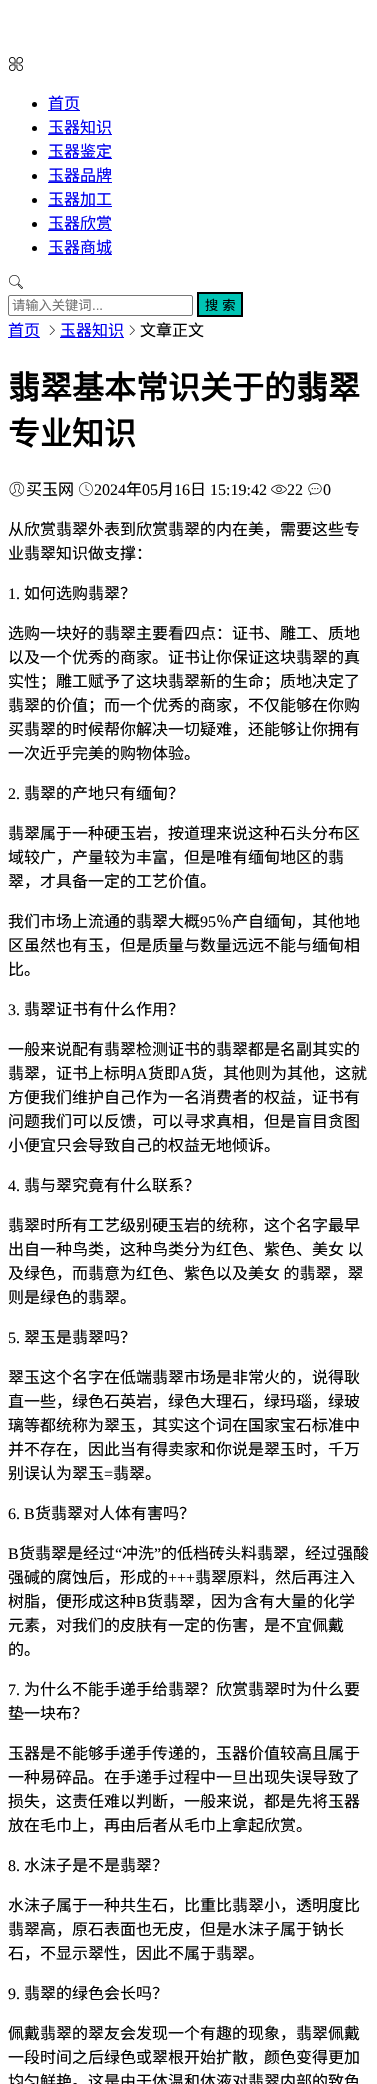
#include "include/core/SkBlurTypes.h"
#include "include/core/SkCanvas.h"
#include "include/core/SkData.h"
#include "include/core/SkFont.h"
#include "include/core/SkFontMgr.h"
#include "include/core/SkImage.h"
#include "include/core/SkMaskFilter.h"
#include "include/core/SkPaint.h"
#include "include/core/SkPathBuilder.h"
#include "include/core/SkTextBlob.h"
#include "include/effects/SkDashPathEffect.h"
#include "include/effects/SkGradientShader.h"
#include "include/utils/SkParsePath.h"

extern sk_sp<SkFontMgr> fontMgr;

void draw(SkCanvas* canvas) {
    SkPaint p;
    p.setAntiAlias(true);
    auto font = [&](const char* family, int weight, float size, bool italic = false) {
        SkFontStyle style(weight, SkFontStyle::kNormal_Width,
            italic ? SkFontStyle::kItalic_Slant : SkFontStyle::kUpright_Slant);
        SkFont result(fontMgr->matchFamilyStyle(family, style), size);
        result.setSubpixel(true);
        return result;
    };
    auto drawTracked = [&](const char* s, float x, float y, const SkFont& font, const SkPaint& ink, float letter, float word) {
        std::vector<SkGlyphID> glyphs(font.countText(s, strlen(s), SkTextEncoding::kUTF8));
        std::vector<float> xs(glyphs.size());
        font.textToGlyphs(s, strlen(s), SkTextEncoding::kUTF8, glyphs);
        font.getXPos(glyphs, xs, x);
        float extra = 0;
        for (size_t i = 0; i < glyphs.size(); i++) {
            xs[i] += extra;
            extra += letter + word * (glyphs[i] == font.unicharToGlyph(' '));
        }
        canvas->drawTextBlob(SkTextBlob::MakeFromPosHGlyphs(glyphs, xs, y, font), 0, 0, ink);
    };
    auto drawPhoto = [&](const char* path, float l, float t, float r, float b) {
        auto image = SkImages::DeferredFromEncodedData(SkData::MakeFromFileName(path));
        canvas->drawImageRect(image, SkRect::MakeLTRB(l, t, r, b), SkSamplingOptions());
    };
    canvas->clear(0xFFFFFFFF);
    drawPhoto("media/1.png", 9, 57, 23, 71);
    p.setColor(0xFF000000);
    canvas->drawCircle(34.5f, 104.5f, 2.5f, p);
    p.setColor(0xFF0000EE);
    canvas->drawRect(SkRect::MakeLTRB(48, 110, 80, 111), p);
    auto font1 = font("Noto Sans CJK SC", 400, 16);
    canvas->drawString("首页", 48, 109, font1, p);
    p.setColor(0xFF000000);
    canvas->drawCircle(34.5f, 128.5f, 2.5f, p);
    p.setColor(0xFF0000EE);
    canvas->drawRect(SkRect::MakeLTRB(48, 134, 112, 135), p);
    canvas->drawString("玉器知识", 48, 133, font1, p);
    p.setColor(0xFF000000);
    canvas->drawCircle(34.5f, 152.5f, 2.5f, p);
    p.setColor(0xFF0000EE);
    canvas->drawRect(SkRect::MakeLTRB(48, 158, 112, 159), p);
    canvas->drawString("玉器鉴定", 48, 157, font1, p);
    p.setColor(0xFF000000);
    canvas->drawCircle(34.5f, 176.5f, 2.5f, p);
    p.setColor(0xFF0000EE);
    canvas->drawRect(SkRect::MakeLTRB(48, 182, 112, 183), p);
    canvas->drawString("玉器品牌", 48, 181, font1, p);
    p.setColor(0xFF000000);
    canvas->drawCircle(34.5f, 200.5f, 2.5f, p);
    p.setColor(0xFF0000EE);
    canvas->drawRect(SkRect::MakeLTRB(48, 206, 112, 207), p);
    canvas->drawString("玉器加工", 48, 205, font1, p);
    p.setColor(0xFF000000);
    canvas->drawCircle(34.5f, 224.5f, 2.5f, p);
    p.setColor(0xFF0000EE);
    canvas->drawRect(SkRect::MakeLTRB(48, 230, 112, 231), p);
    canvas->drawString("玉器欣赏", 48, 229, font1, p);
    p.setColor(0xFF000000);
    canvas->drawCircle(34.5f, 248.5f, 2.5f, p);
    p.setColor(0xFF0000EE);
    canvas->drawRect(SkRect::MakeLTRB(48, 254, 112, 255), p);
    canvas->drawString("玉器商城", 48, 253, font1, p);
    drawPhoto("media/2.png", 9, 275, 23, 289);
    p.setStyle(SkPaint::kStroke_Style);
    p.setStrokeWidth(1);
    p.setColor(0xFF767676);
    canvas->drawRoundRect(SkRect::MakeLTRB(8.5f, 295.5f, 192.5f, 315.5f), 1.5f, 1.5f, p);
    auto font2 = font("Noto Sans CJK SC", 400, 13.25f);
    p.setStyle(SkPaint::kFill_Style);
    p.setColor(0xFF757575);
    canvas->drawString("请输入关键词", 12, 310, font2, p);
    auto font3 = font("Liberation Sans", 400, 13.25f);
    canvas->drawString("...", 92, 310, font3, p);
    p.setColor(0xFF00C4B4);
    canvas->drawRect(SkRect::MakeLTRB(198, 293, 242, 316), p);
    p.setStyle(SkPaint::kStroke_Style);
    p.setStrokeWidth(2);
    p.setColor(0xFF000000);
    canvas->drawRect(SkRect::MakeLTRB(198, 293, 242, 316), p);
    p.setStyle(SkPaint::kFill_Style);
    drawTracked("搜 索", 205, 310, font2, p, 0, 1);
    p.setColor(0xFF0000EE);
    canvas->drawRect(SkRect::MakeLTRB(8, 337, 40, 338), p);
    canvas->drawString("首页", 8, 336, font1, p);
    drawPhoto("media/3.png", 49, 325, 55, 335);
    canvas->drawRect(SkRect::MakeLTRB(60, 337, 124, 338), p);
    canvas->drawString("玉器知识", 60, 336, font1, p);
    drawPhoto("media/3.png", 129, 325, 135, 335);
    p.setColor(0xFF000000);
    canvas->drawString("文章正文", 140, 336, font1, p);
    auto font4 = font("Noto Sans CJK SC", 700, 32);
    canvas->drawString("翡翠基本常识关于的翡翠", 8, 399, font4, p);
    canvas->drawString("专业知识", 8, 445, font4, p);
    drawPhoto("media/4.png", 9, 481, 25, 497);
    canvas->drawString("买玉网", 26, 495, font1, p);
    drawPhoto("media/5.png", 79, 482, 93, 496);
    auto font5 = font("Liberation Serif", 400, 16);
    canvas->drawString("2024", 94, 495, font5, p);
    canvas->drawString("年", 126, 495, font1, p);
    canvas->drawString("05", 142, 495, font5, p);
    canvas->drawString("月", 158, 495, font1, p);
    canvas->drawString("16", 174, 495, font5, p);
    canvas->drawString("日", 190, 495, font1, p);
    canvas->drawString("15:19:42", 210, 495, font5, p);
    drawPhoto("media/6.png", 271, 484, 287, 495);
    canvas->drawString("22", 287, 495, font5, p);
    drawPhoto("media/7.png", 308, 483, 322, 496);
    canvas->drawString("0", 323, 495, font5, p);
    canvas->drawString("从欣赏翡翠外表到欣赏翡翠的内在美，需要这些专", 8, 535, font1, p);
    canvas->drawString("业翡翠知识做支撑：", 8, 559, font1, p);
    canvas->drawString("1.", 8, 599, font5, p);
    {
        const struct { const char* s; float x, y; } items[] = {
            {"如何选购翡翠？", 24, 599},
            {"选购一块好的翡翠主要看四点：证书、雕工、质地", 8, 639},
            {"以及一个优秀的商家。证书让你保证这块翡翠的真", 8, 663},
            {"实性；雕工赋予了这块翡翠新的生命；质地决定了", 8, 687},
            {"翡翠的价值；而一个优秀的商家，不仅能够在你购", 8, 711},
            {"买翡翠的时候帮你解决一切疑难，还能够让你拥有", 8, 735},
            {"一次近乎完美的购物体验。", 8, 759},
        };
        for (auto [s, x, y] : items) {
            canvas->drawString(s, x, y, font1, p);
        }
    }
    canvas->drawString("2.", 8, 799, font5, p);
    {
        const struct { const char* s; float x, y; } items[] = {
            {"翡翠的产地只有缅甸？", 24, 799},
            {"翡翠属于一种硬玉岩，按道理来说这种石头分布区", 8, 839},
            {"域较广，产量较为丰富，但是唯有缅甸地区的翡", 8, 863},
            {"翠，才具备一定的工艺价值。", 8, 887},
            {"我们市场上流通的翡翠大概", 8, 927},
        };
        for (auto [s, x, y] : items) {
            canvas->drawString(s, x, y, font1, p);
        }
    }
    canvas->drawString("95", 200, 927, font5, p);
    {
        const struct { const char* s; float x, y; } items[] = {
            {"％产自缅甸，其他地", 216, 927},
            {"区虽然也有玉，但是质量与数量远远不能与缅甸相", 8, 951},
            {"比。", 8, 975},
        };
        for (auto [s, x, y] : items) {
            canvas->drawString(s, x, y, font1, p);
        }
    }
    canvas->drawString("3.", 8, 1015, font5, p);
    {
        const struct { const char* s; float x, y; } items[] = {
            {"翡翠证书有什么作用？", 24, 1015},
            {"一般来说配有翡翠检测证书的翡翠都是名副其实的", 8, 1055},
            {"翡翠，证书上标明", 8, 1079},
        };
        for (auto [s, x, y] : items) {
            canvas->drawString(s, x, y, font1, p);
        }
    }
    canvas->drawString("A", 136, 1079, font5, p);
    canvas->drawString("货即", 148, 1079, font1, p);
    canvas->drawString("A", 180, 1079, font5, p);
    {
        const struct { const char* s; float x, y; } items[] = {
            {"货，其他则为其他，这就", 191, 1079},
            {"方便我们维护自己作为一名消费者的权益，证书有", 8, 1103},
            {"问题我们可以反馈，可以寻求真相，但是盲目贪图", 8, 1127},
            {"小便宜只会导致自己的权益无地倾诉。", 8, 1151},
        };
        for (auto [s, x, y] : items) {
            canvas->drawString(s, x, y, font1, p);
        }
    }
    canvas->drawString("4.", 8, 1191, font5, p);
    {
        const struct { const char* s; float x, y; } items[] = {
            {"翡与翠究竟有什么联系？", 24, 1191},
            {"翡翠时所有工艺级别硬玉岩的统称，这个名字最早", 8, 1231},
            {"出自一种鸟类，这种鸟类分为红色、紫色、美女 以", 8, 1255},
            {"及绿色，而翡意为红色、紫色以及美女 的翡翠，翠", 8, 1279},
            {"则是绿色的翡翠。", 8, 1303},
        };
        for (auto [s, x, y] : items) {
            canvas->drawString(s, x, y, font1, p);
        }
    }
    canvas->drawString("5.", 8, 1343, font5, p);
    {
        const struct { const char* s; float x, y; } items[] = {
            {"翠玉是翡翠吗？", 24, 1343},
            {"翠玉这个名字在低端翡翠市场是非常火的，说得耿", 8, 1383},
            {"直一些，绿色石英岩，绿色大理石，绿玛瑙，绿玻", 8, 1407},
            {"璃等都统称为翠玉，其实这个词在国家宝石标准中", 8, 1431},
            {"并不存在，因此当有得卖家和你说是翠玉时，千万", 8, 1455},
            {"别误认为翠玉", 8, 1479},
        };
        for (auto [s, x, y] : items) {
            canvas->drawString(s, x, y, font1, p);
        }
    }
    canvas->drawString("=", 104, 1479, font5, p);
    canvas->drawString("翡翠。", 113, 1479, font1, p);
    canvas->drawString("6. B", 8, 1519, font5, p);
    canvas->drawString("货翡翠对人体有害吗？", 35, 1519, font1, p);
    canvas->drawString("B", 8, 1559, font5, p);
    canvas->drawString("货翡翠是经过", 19, 1559, font1, p);
    canvas->drawString("“", 115, 1559, font5, p);
    canvas->drawString("冲洗", 122, 1559, font1, p);
    canvas->drawString("”", 154, 1559, font5, p);
    canvas->drawString("的低档砖头料翡翠，经过强酸", 161, 1559, font1, p);
    canvas->drawString("强碱的腐蚀后，形成的", 8, 1583, font1, p);
    canvas->drawString("+++", 168, 1583, font5, p);
    canvas->drawString("翡翠原料，然后再注入", 195, 1583, font1, p);
    canvas->drawString("树脂，便形成这种", 8, 1607, font1, p);
    canvas->drawString("B", 136, 1607, font5, p);
    {
        const struct { const char* s; float x, y; } items[] = {
            {"货翡翠，因为含有大量的化学", 147, 1607},
            {"元素，对我们的皮肤有一定的伤害，是不宜佩戴", 8, 1631},
            {"的。", 8, 1655},
        };
        for (auto [s, x, y] : items) {
            canvas->drawString(s, x, y, font1, p);
        }
    }
    canvas->drawString("7.", 8, 1695, font5, p);
    {
        const struct { const char* s; float x, y; } items[] = {
            {"为什么不能手递手给翡翠？欣赏翡翠时为什么要", 24, 1695},
            {"垫一块布？", 8, 1719},
            {"玉器是不能够手递手传递的，玉器价值较高且属于", 8, 1759},
            {"一种易碎品。在手递手过程中一旦出现失误导致了", 8, 1783},
            {"损失，这责任难以判断，一般来说，都是先将玉器", 8, 1807},
            {"放在毛巾上，再由后者从毛巾上拿起欣赏。", 8, 1831},
        };
        for (auto [s, x, y] : items) {
            canvas->drawString(s, x, y, font1, p);
        }
    }
    canvas->drawString("8.", 8, 1871, font5, p);
    {
        const struct { const char* s; float x, y; } items[] = {
            {"水沫子是不是翡翠？", 24, 1871},
            {"水沫子属于一种共生石，比重比翡翠小，透明度比", 8, 1911},
            {"翡翠高，原石表面也无皮，但是水沫子属于钠长", 8, 1935},
            {"石，不显示翠性，因此不属于翡翠。", 8, 1959},
        };
        for (auto [s, x, y] : items) {
            canvas->drawString(s, x, y, font1, p);
        }
    }
    canvas->drawString("9.", 8, 1999, font5, p);
    {
        const struct { const char* s; float x, y; } items[] = {
            {"翡翠的绿色会长吗？", 24, 1999},
            {"佩戴翡翠的翠友会发现一个有趣的现象，翡翠佩戴", 8, 2039},
            {"一段时间之后绿色或翠根开始扩散，颜色变得更加", 8, 2063},
            {"均匀鲜艳。这是由于体温和体液对翡翠内部的致色", 8, 2087},
        };
        for (auto [s, x, y] : items) {
            canvas->drawString(s, x, y, font1, p);
        }
    }
}
